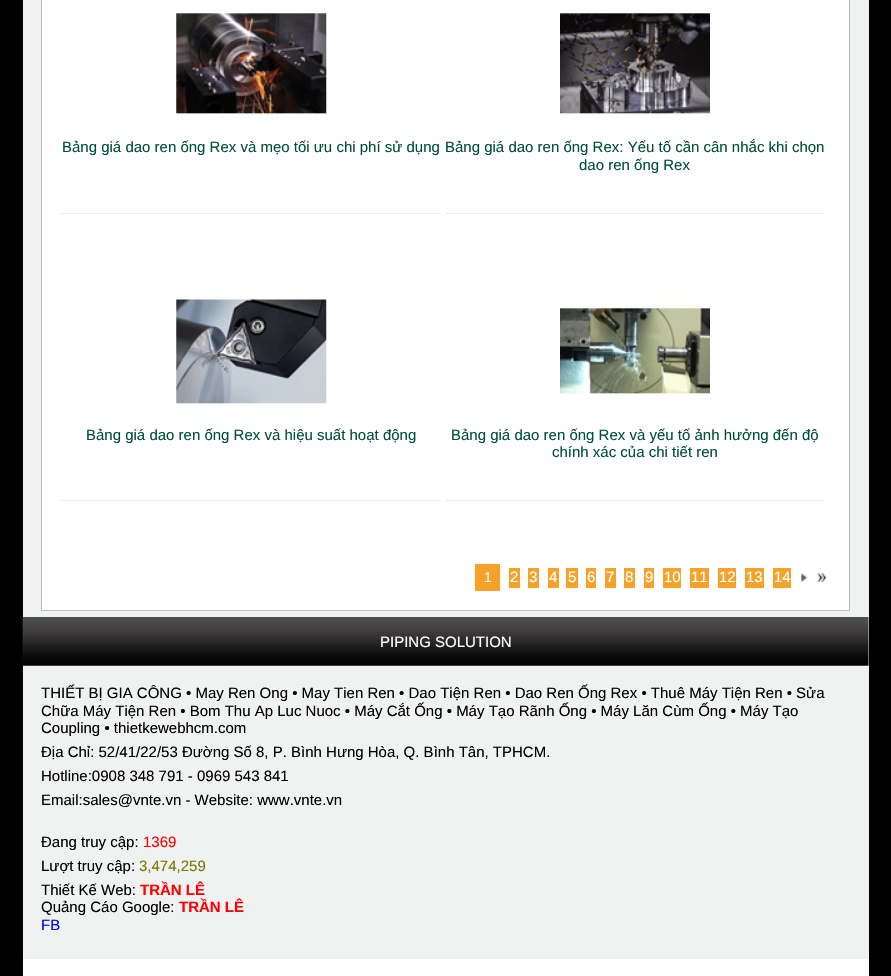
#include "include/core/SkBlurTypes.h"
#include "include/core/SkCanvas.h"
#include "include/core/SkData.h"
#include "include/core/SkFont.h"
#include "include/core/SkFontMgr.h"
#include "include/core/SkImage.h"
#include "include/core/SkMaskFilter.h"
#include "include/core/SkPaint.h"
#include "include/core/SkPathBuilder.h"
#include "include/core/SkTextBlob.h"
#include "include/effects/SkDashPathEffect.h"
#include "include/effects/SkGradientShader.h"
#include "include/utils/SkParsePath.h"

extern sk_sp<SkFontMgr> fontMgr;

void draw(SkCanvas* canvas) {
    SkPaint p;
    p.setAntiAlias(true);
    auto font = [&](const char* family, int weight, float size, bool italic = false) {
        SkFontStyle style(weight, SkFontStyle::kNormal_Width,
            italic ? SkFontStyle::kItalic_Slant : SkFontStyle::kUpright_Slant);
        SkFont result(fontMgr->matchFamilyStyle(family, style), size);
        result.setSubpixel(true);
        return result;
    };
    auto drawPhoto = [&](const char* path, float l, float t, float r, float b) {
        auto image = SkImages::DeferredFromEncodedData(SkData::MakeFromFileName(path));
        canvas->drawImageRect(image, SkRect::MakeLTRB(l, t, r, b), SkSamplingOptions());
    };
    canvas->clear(0xFF000000);
    drawPhoto("media/1.png", 22, 0, 23, 976);
    p.setColor(0xFFFFFFFF);
    canvas->drawRect(SkRect::MakeLTRB(23, 618, 869, 976), p);
    p.setColor(0xFFF0F1F1);
    canvas->drawRect(SkRect::MakeLTRB(23, 0, 869, 618), p);
    p.setColor(0xFFFFFFFF);
    canvas->drawRect(SkRect::MakeLTRB(41.5f, -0.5f, 849.5f, 610.5f), p);
    p.setStyle(SkPaint::kStroke_Style);
    p.setStrokeWidth(1);
    p.setColor(0xFFC0C0C0);
    canvas->drawRect(SkRect::MakeLTRB(41.5f, -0.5f, 849.5f, 610.5f), p);
    p.setStyle(SkPaint::kFill_Style);
    p.setColor(0xFFECECEC);
    canvas->drawRect(SkRect::MakeLTRB(61, 213, 441, 214), p);
    drawPhoto("media/2.png", 176, 8, 327, 128);
    auto font1 = font("Liberation Sans", 400, 15);
    p.setColor(0xFF005039);
    canvas->drawString("Bảng giá dao ren ống Rex và mẹo tối ưu chi phí sử dụng", 62, 152, font1, p);
    p.setColor(0xFFECECEC);
    canvas->drawRect(SkRect::MakeLTRB(445, 213, 825, 214), p);
    drawPhoto("media/3.png", 560, 9, 710, 118);
    p.setColor(0xFF005039);
    canvas->drawString("Bảng giá dao ren ống Rex: Yếu tố cần cân nhắc khi chọn", 445, 152, font1, p);
    canvas->drawString("dao ren ống Rex", 579, 170, font1, p);
    p.setColor(0xFFECECEC);
    canvas->drawRect(SkRect::MakeLTRB(61, 500, 441, 501), p);
    drawPhoto("media/4.png", 176, 296, 327, 406);
    p.setColor(0xFF005039);
    canvas->drawString("Bảng giá dao ren ống Rex và hiệu suất hoạt động", 86, 440, font1, p);
    p.setColor(0xFFECECEC);
    canvas->drawRect(SkRect::MakeLTRB(445, 500, 825, 501), p);
    drawPhoto("media/5.png", 560, 298, 710, 396);
    p.setColor(0xFF005039);
    canvas->drawString("Bảng giá dao ren ống Rex và yếu tố ảnh hưởng đến độ", 451, 440, font1, p);
    canvas->drawString("chính xác của chi tiết ren", 552, 457, font1, p);
    p.setColor(0xFFF6A229);
    canvas->drawRect(SkRect::MakeLTRB(475, 564, 500, 591), p);
    auto font2 = font("Liberation Sans", 400, 14);
    p.setColor(0xFFFFFFFF);
    canvas->drawString("1", 484, 582, font2, p);
    p.setColor(0xFFF6A229);
    canvas->drawRect(SkRect::MakeLTRB(509, 568, 520, 588), p);
    p.setColor(0xFFFFFFFF);
    canvas->drawString("2", 510, 582, font1, p);
    p.setColor(0xFFF6A229);
    canvas->drawRect(SkRect::MakeLTRB(528, 568, 539, 588), p);
    p.setColor(0xFFFFFFFF);
    canvas->drawString("3", 529, 582, font1, p);
    p.setColor(0xFFF6A229);
    canvas->drawRect(SkRect::MakeLTRB(548, 568, 559, 588), p);
    p.setColor(0xFFFFFFFF);
    canvas->drawString("4", 549, 582, font1, p);
    p.setColor(0xFFF6A229);
    canvas->drawRect(SkRect::MakeLTRB(566, 568, 578, 588), p);
    p.setColor(0xFFFFFFFF);
    canvas->drawString("5", 568, 582, font1, p);
    p.setColor(0xFFF6A229);
    canvas->drawRect(SkRect::MakeLTRB(586, 568, 596, 588), p);
    p.setColor(0xFFFFFFFF);
    canvas->drawString("6", 587, 582, font1, p);
    p.setColor(0xFFF6A229);
    canvas->drawRect(SkRect::MakeLTRB(605, 568, 616, 588), p);
    p.setColor(0xFFFFFFFF);
    canvas->drawString("7", 606, 582, font1, p);
    p.setColor(0xFFF6A229);
    canvas->drawRect(SkRect::MakeLTRB(624, 568, 635, 588), p);
    p.setColor(0xFFFFFFFF);
    canvas->drawString("8", 625, 582, font1, p);
    p.setColor(0xFFF6A229);
    canvas->drawRect(SkRect::MakeLTRB(644, 568, 654, 588), p);
    p.setColor(0xFFFFFFFF);
    canvas->drawString("9", 645, 582, font1, p);
    p.setColor(0xFFF6A229);
    canvas->drawRect(SkRect::MakeLTRB(663, 568, 681, 588), p);
    p.setColor(0xFFFFFFFF);
    canvas->drawString("10", 664, 582, font1, p);
    p.setColor(0xFFF6A229);
    canvas->drawRect(SkRect::MakeLTRB(690, 568, 709, 588), p);
    p.setColor(0xFFFFFFFF);
    canvas->drawString("11", 691, 582, font1, p);
    p.setColor(0xFFF6A229);
    canvas->drawRect(SkRect::MakeLTRB(718, 568, 736, 588), p);
    p.setColor(0xFFFFFFFF);
    canvas->drawString("12", 719, 582, font1, p);
    p.setColor(0xFFF6A229);
    canvas->drawRect(SkRect::MakeLTRB(745, 568, 764, 588), p);
    p.setColor(0xFFFFFFFF);
    canvas->drawString("13", 746, 582, font1, p);
    p.setColor(0xFFF6A229);
    canvas->drawRect(SkRect::MakeLTRB(773, 568, 791, 588), p);
    p.setColor(0xFFFFFFFF);
    canvas->drawString("14", 774, 582, font1, p);
    drawPhoto("media/6.png", 800, 573, 808, 582);
    drawPhoto("media/7.png", 817, 573, 827, 582);
    drawPhoto("media/8.png", 22, 617, 869, 666);
    canvas->drawString("PIPING SOLUTION", 380, 647, font1, p);
    p.setColor(0xFFF0F1F1);
    canvas->drawRect(SkRect::MakeLTRB(23, 666, 869, 959), p);
    p.setColor(0xFF000000);
    {
        const struct { const char* s; float x, y; } items[] = {
            {"THIẾT BỊ GIA CÔNG • May Ren Ong • May Tien Ren • Dao Tiện Ren • Dao Ren Ống Rex • Thuê Máy Tiện Ren • Sửa", 41, 698},
            {"Chữa Máy Tiện Ren • Bom Thu Ap Luc Nuoc • Máy Cắt Ống • Máy Tạo Rãnh Ống • Máy Lăn Cùm Ống • Máy Tạo", 41, 716},
            {"Coupling • thietkewebhcm.com", 41, 733},
            {"Địa Chỉ: 52/41/22/53 Đường Số 8, P. Bình Hưng Hòa, Q. Bình Tân, TPHCM.", 41, 757},
            {"Hotline:0908 348 791 - 0969 543 841", 41, 781},
            {"Email:sales@vnte.vn - Website: www.vnte.vn", 41, 805},
            {"Đang truy cập:", 41, 847},
        };
        for (auto [s, x, y] : items) {
            canvas->drawString(s, x, y, font1, p);
        }
    }
    p.setColor(0xFFFF0000);
    canvas->drawString("1369", 143, 847, font1, p);
    p.setColor(0xFF000000);
    canvas->drawString("Lượt truy cập:", 41, 871, font1, p);
    p.setColor(0xFF797500);
    canvas->drawString("3,474,259", 139, 871, font1, p);
    p.setColor(0xFF000000);
    canvas->drawString("Thiết Kế Web:", 41, 895, font1, p);
    auto font3 = font("Liberation Sans", 700, 15);
    p.setColor(0xFFFF0000);
    canvas->drawString("TRẦN LÊ", 140, 895, font3, p);
    p.setColor(0xFF000000);
    canvas->drawString("Quảng Cáo Google:", 41, 912, font1, p);
    p.setColor(0xFFFF0000);
    canvas->drawString("TRẦN LÊ", 179, 912, font3, p);
    p.setColor(0xFF0000EE);
    canvas->drawString("FB", 41, 930, font1, p);
}
